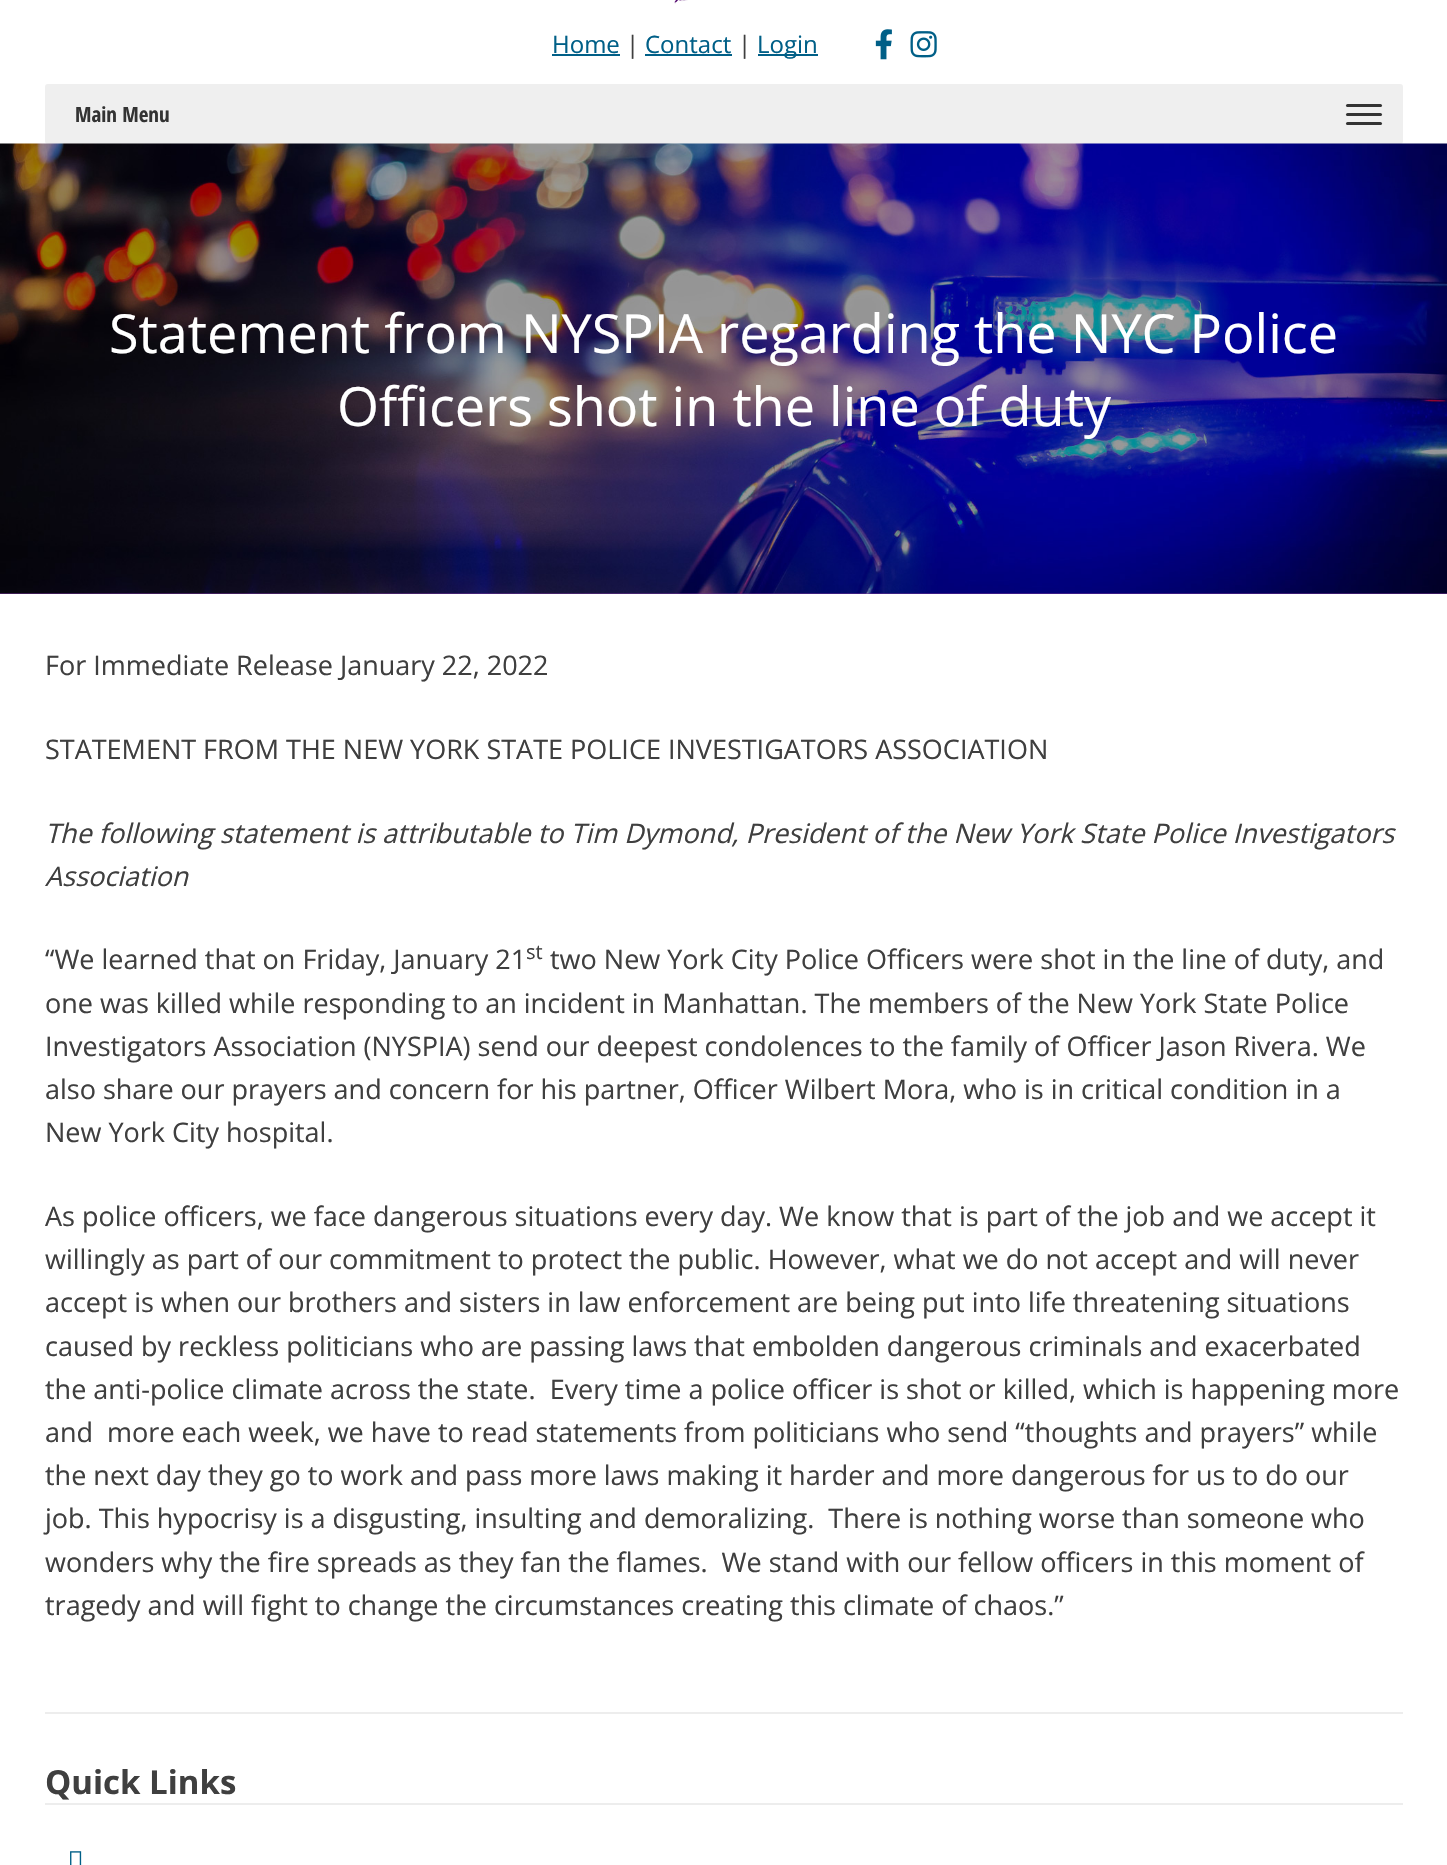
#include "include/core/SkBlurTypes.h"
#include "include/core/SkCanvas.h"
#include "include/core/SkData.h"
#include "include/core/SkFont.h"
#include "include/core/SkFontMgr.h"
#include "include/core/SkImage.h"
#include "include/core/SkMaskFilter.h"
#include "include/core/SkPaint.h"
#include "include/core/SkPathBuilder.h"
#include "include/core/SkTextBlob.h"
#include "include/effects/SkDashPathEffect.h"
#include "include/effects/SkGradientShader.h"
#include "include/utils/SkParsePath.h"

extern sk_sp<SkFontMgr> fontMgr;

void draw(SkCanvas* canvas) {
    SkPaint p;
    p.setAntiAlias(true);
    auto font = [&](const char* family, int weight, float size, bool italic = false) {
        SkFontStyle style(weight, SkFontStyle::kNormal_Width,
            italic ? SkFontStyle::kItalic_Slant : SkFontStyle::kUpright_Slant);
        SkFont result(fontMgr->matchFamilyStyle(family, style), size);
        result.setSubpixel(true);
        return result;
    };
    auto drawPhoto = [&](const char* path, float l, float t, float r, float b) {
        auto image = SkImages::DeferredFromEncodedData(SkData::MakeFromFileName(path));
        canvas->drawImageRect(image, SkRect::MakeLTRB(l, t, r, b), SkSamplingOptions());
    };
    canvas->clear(0xFFFFFFFF);
    drawPhoto("media/1.png", 674, 0, 688, 4);
    auto font1 = font("Open Sans", 400, 24);
    p.setColor(0xFF005F87);
    canvas->drawString("Home", 552, 53, font1, p);
    canvas->drawRect(SkRect::MakeLTRB(552, 54, 620, 56), p);
    p.setColor(0xFF3F3F3F);
    canvas->drawString("|", 626, 53, font1, p);
    p.setColor(0xFF005F87);
    canvas->drawString("Contact", 645, 53, font1, p);
    canvas->drawRect(SkRect::MakeLTRB(645, 54, 732, 56), p);
    p.setColor(0xFF3F3F3F);
    canvas->drawString("|", 738, 53, font1, p);
    p.setColor(0xFF005F87);
    canvas->drawRect(SkRect::MakeLTRB(758, 54, 818, 56), p);
    canvas->drawString("Login", 757, 53, font1, p);
    drawPhoto("media/2.png", 875, 29, 892, 60);
    drawPhoto("media/3.png", 910, 31, 937, 58);
    p.setColor(0xFFEFEFEF);
    canvas->drawRoundRect(SkRect::MakeLTRB(45, 84, 1403, 144), 3, 3, p);
    auto font2 = font("Open Sans Condensed", 700, 21);
    p.setColor(0xFF333333);
    canvas->drawString("Main Menu", 75, 122, font2, p);
    canvas->drawRoundRect(SkRect::MakeLTRB(1346, 104, 1382, 107), 1.5f, 1.5f, p);
    canvas->drawRoundRect(SkRect::MakeLTRB(1346, 113, 1382, 116), 1.5f, 1.5f, p);
    canvas->drawRoundRect(SkRect::MakeLTRB(1346, 122, 1382, 125), 1.5f, 1.5f, p);
    p.setColor(0xFF713397);
    canvas->drawRect(SkRect::MakeLTRB(0, 593, 1447, 594), p);
    drawPhoto("media/4.png", 0, 143, 1447, 594);
    auto font3 = font("Open Sans", 400, 54);
    p.setColor(0xFFFFFFFF);
    canvas->drawString("Statement from NYSPIA regarding the NYC Police", 109, 353, font3, p);
    canvas->drawString("Officers shot in the line of duty", 337, 426, font3, p);
    p.setColor(0xFFEDEDED);
    canvas->drawRect(SkRect::MakeLTRB(45, 1712, 1403, 1714), p);
    auto font4 = font("Open Sans", 400, 27);
    p.setColor(0xFF3F3F3F);
    canvas->drawString("For Immediate Release January 22, 2022", 45, 675, font4, p);
    canvas->drawString("STATEMENT FROM THE NEW YORK STATE POLICE INVESTIGATORS ASSOCIATION", 45, 759, font4, p);
    auto font5 = font("Open Sans", 400, 27, true);
    canvas->drawString("The following statement is attributable to Tim Dymond, President of the New York State Police Investigators", 45, 843, font5, p);
    canvas->drawString("Association", 45, 886, font5, p);
    canvas->drawString("“We learned that on Friday, January 21", 45, 969, font4, p);
    auto font6 = font("Open Sans", 400, 20);
    canvas->drawString("st", 526, 959, font6, p);
    {
        const struct { const char* s; float x, y; } items[] = {
            {"two New York City Police Officers were shot in the line of duty, and", 550, 969},
            {"one was killed while responding to an incident in Manhattan. The members of the New York State Police", 45, 1013},
            {"Investigators Association (NYSPIA) send our deepest condolences to the family of Officer Jason Rivera. We", 45, 1056},
            {"also share our prayers and concern for his partner, Officer Wilbert Mora, who is in critical condition in a", 45, 1099},
            {"New York City hospital.", 45, 1142},
            {"As police officers, we face dangerous situations every day. We know that is part of the job and we accept it", 45, 1226},
            {"willingly as part of our commitment to protect the public. However, what we do not accept and will never", 45, 1269},
            {"accept is when our brothers and sisters in law enforcement are being put into life threatening situations", 45, 1312},
            {"caused by reckless politicians who are passing laws that embolden dangerous criminals and exacerbated", 45, 1356},
            {"the anti-police climate across the state.  Every time a police officer is shot or killed, which is happening more", 45, 1399},
            {"and  more each week, we have to read statements from politicians who send “thoughts and prayers” while", 45, 1442},
            {"the next day they go to work and pass more laws making it harder and more dangerous for us to do our", 45, 1485},
            {"job. This hypocrisy is a disgusting, insulting and demoralizing.  There is nothing worse than someone who", 45, 1528},
            {"wonders why the fire spreads as they fan the flames.  We stand with our fellow officers in this moment of", 45, 1572},
            {"tragedy and will fight to change the circumstances creating this climate of chaos.”", 45, 1615},
        };
        for (auto [s, x, y] : items) {
            canvas->drawString(s, x, y, font4, p);
        }
    }
    p.setColor(0xFFEDEDED);
    canvas->drawRect(SkRect::MakeLTRB(45, 1803, 1403, 1805), p);
    auto font7 = font("Open Sans", 700, 33);
    p.setColor(0xFF3F3F3F);
    canvas->drawString("Quick Links", 45, 1794, font7, p);
    drawPhoto("media/5.png", 70, 1851, 82, 1865);
}
